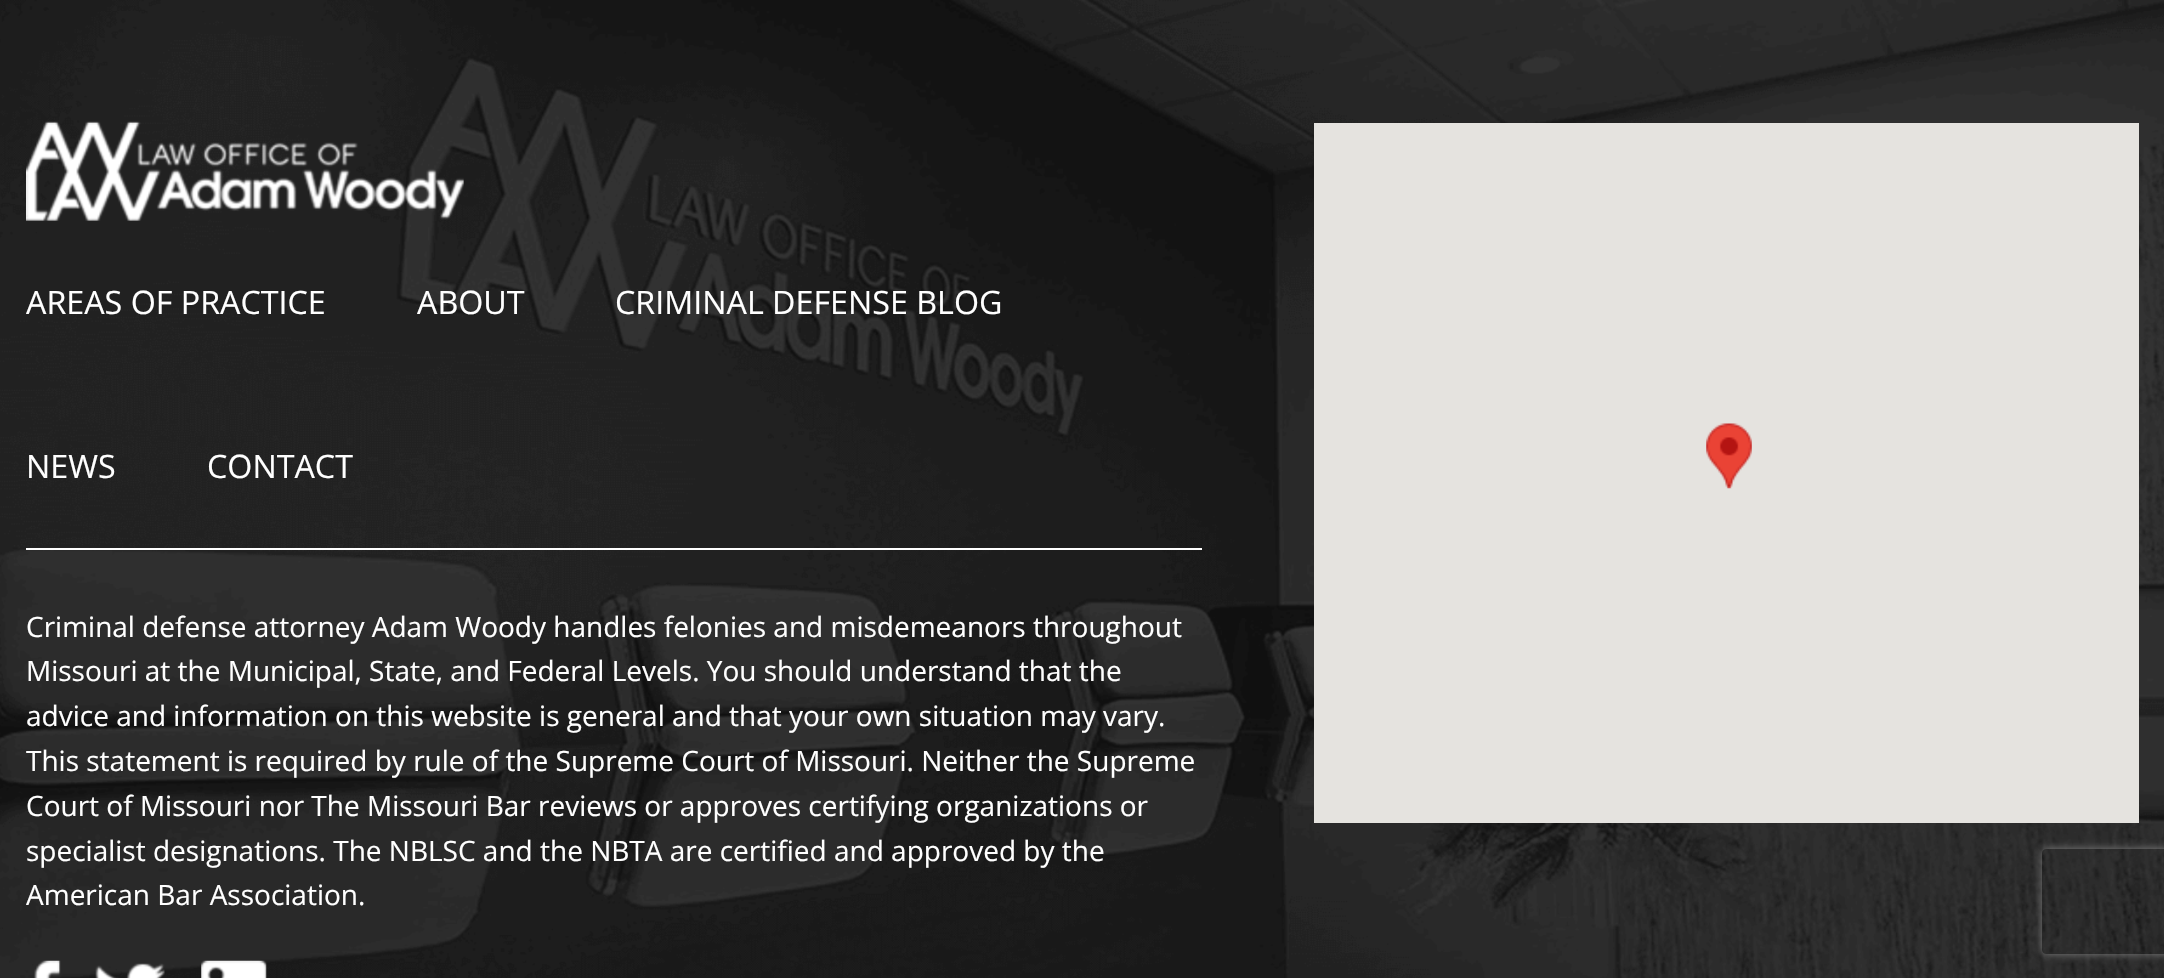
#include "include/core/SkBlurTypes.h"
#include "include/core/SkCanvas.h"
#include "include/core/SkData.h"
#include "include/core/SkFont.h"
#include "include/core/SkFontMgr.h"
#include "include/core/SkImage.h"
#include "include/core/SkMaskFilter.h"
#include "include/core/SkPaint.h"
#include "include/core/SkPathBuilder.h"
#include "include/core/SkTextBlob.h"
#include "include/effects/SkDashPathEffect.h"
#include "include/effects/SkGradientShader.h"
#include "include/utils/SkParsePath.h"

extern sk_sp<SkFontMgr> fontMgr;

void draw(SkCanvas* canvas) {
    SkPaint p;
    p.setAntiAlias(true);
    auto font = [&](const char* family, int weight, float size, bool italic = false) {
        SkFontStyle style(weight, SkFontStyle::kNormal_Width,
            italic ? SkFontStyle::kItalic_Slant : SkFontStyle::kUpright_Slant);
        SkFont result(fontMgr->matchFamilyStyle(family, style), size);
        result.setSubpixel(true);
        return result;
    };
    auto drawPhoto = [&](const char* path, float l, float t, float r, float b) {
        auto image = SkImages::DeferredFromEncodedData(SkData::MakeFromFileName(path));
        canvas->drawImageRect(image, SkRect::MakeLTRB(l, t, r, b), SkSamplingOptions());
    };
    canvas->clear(0xFFFFFFFF);
    drawPhoto("media/1.png", 0, 0, 2164, 978);
    drawPhoto("media/2.png", 26, 121, 464, 221);
    auto font1 = font("Open Sans", 400, 32.25f);
    p.setColor(0xFFFFFFFF);
    {
        const struct { const char* s; float x, y; } items[] = {
            {"AREAS OF PRACTICE", 26, 314},
            {"ABOUT", 417, 314},
            {"CRIMINAL DEFENSE BLOG", 615, 314},
            {"NEWS", 26, 478},
            {"CONTACT", 207, 478},
        };
        for (auto [s, x, y] : items) {
            canvas->drawString(s, x, y, font1, p);
        }
    }
    canvas->drawRect(SkRect::MakeLTRB(26, 548, 1202, 550), p);
    auto font2 = font("Open Sans", 400, 28);
    {
        const struct { const char* s; float x, y; } items[] = {
            {"Criminal defense attorney Adam Woody handles felonies and misdemeanors throughout", 26, 637},
            {"Missouri at the Municipal, State, and Federal Levels. You should understand that the", 26, 681},
            {"advice and information on this website is general and that your own situation may vary.", 26, 726},
            {"This statement is required by rule of the Supreme Court of Missouri. Neither the Supreme", 26, 771},
            {"Court of Missouri nor The Missouri Bar reviews or approves certifying organizations or", 26, 816},
            {"specialist designations. The NBLSC and the NBTA are certified and approved by the", 26, 861},
            {"American Bar Association.", 26, 905},
        };
        for (auto [s, x, y] : items) {
            canvas->drawString(s, x, y, font2, p);
        }
    }
    drawPhoto("media/3.png", 34, 960, 61, 978);
    drawPhoto("media/4.png", 95, 963, 165, 978);
    drawPhoto("media/5.png", 201, 960, 267, 978);
    p.setColor(0xFFE5E3DF);
    canvas->drawRect(SkRect::MakeLTRB(1314, 123, 2139, 823), p);
    drawPhoto("media/6.png", 1706, 423, 1752, 489);
    canvas->save();
    canvas->clipPath(SkPathBuilder(SkPathFillType::kEvenOdd).moveTo(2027, 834).lineTo(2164, 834).lineTo(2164, 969).lineTo(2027, 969).close().moveTo(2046, 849).lineTo(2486, 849).cubicTo(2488, 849, 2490, 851, 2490, 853).lineTo(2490, 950).cubicTo(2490, 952, 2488, 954, 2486, 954).lineTo(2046, 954).cubicTo(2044, 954, 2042, 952, 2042, 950).lineTo(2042, 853).cubicTo(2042, 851, 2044, 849, 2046, 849).close().detach(), true);
    p.setColor(0xFF808080);
    p.setMaskFilter(SkMaskFilter::MakeBlur(kNormal_SkBlurStyle, 4.5f));
    canvas->drawRoundRect(SkRect::MakeLTRB(2042, 849, 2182, 954), 4, 4, p);
    p.setMaskFilter(nullptr);
    canvas->restore();
}
